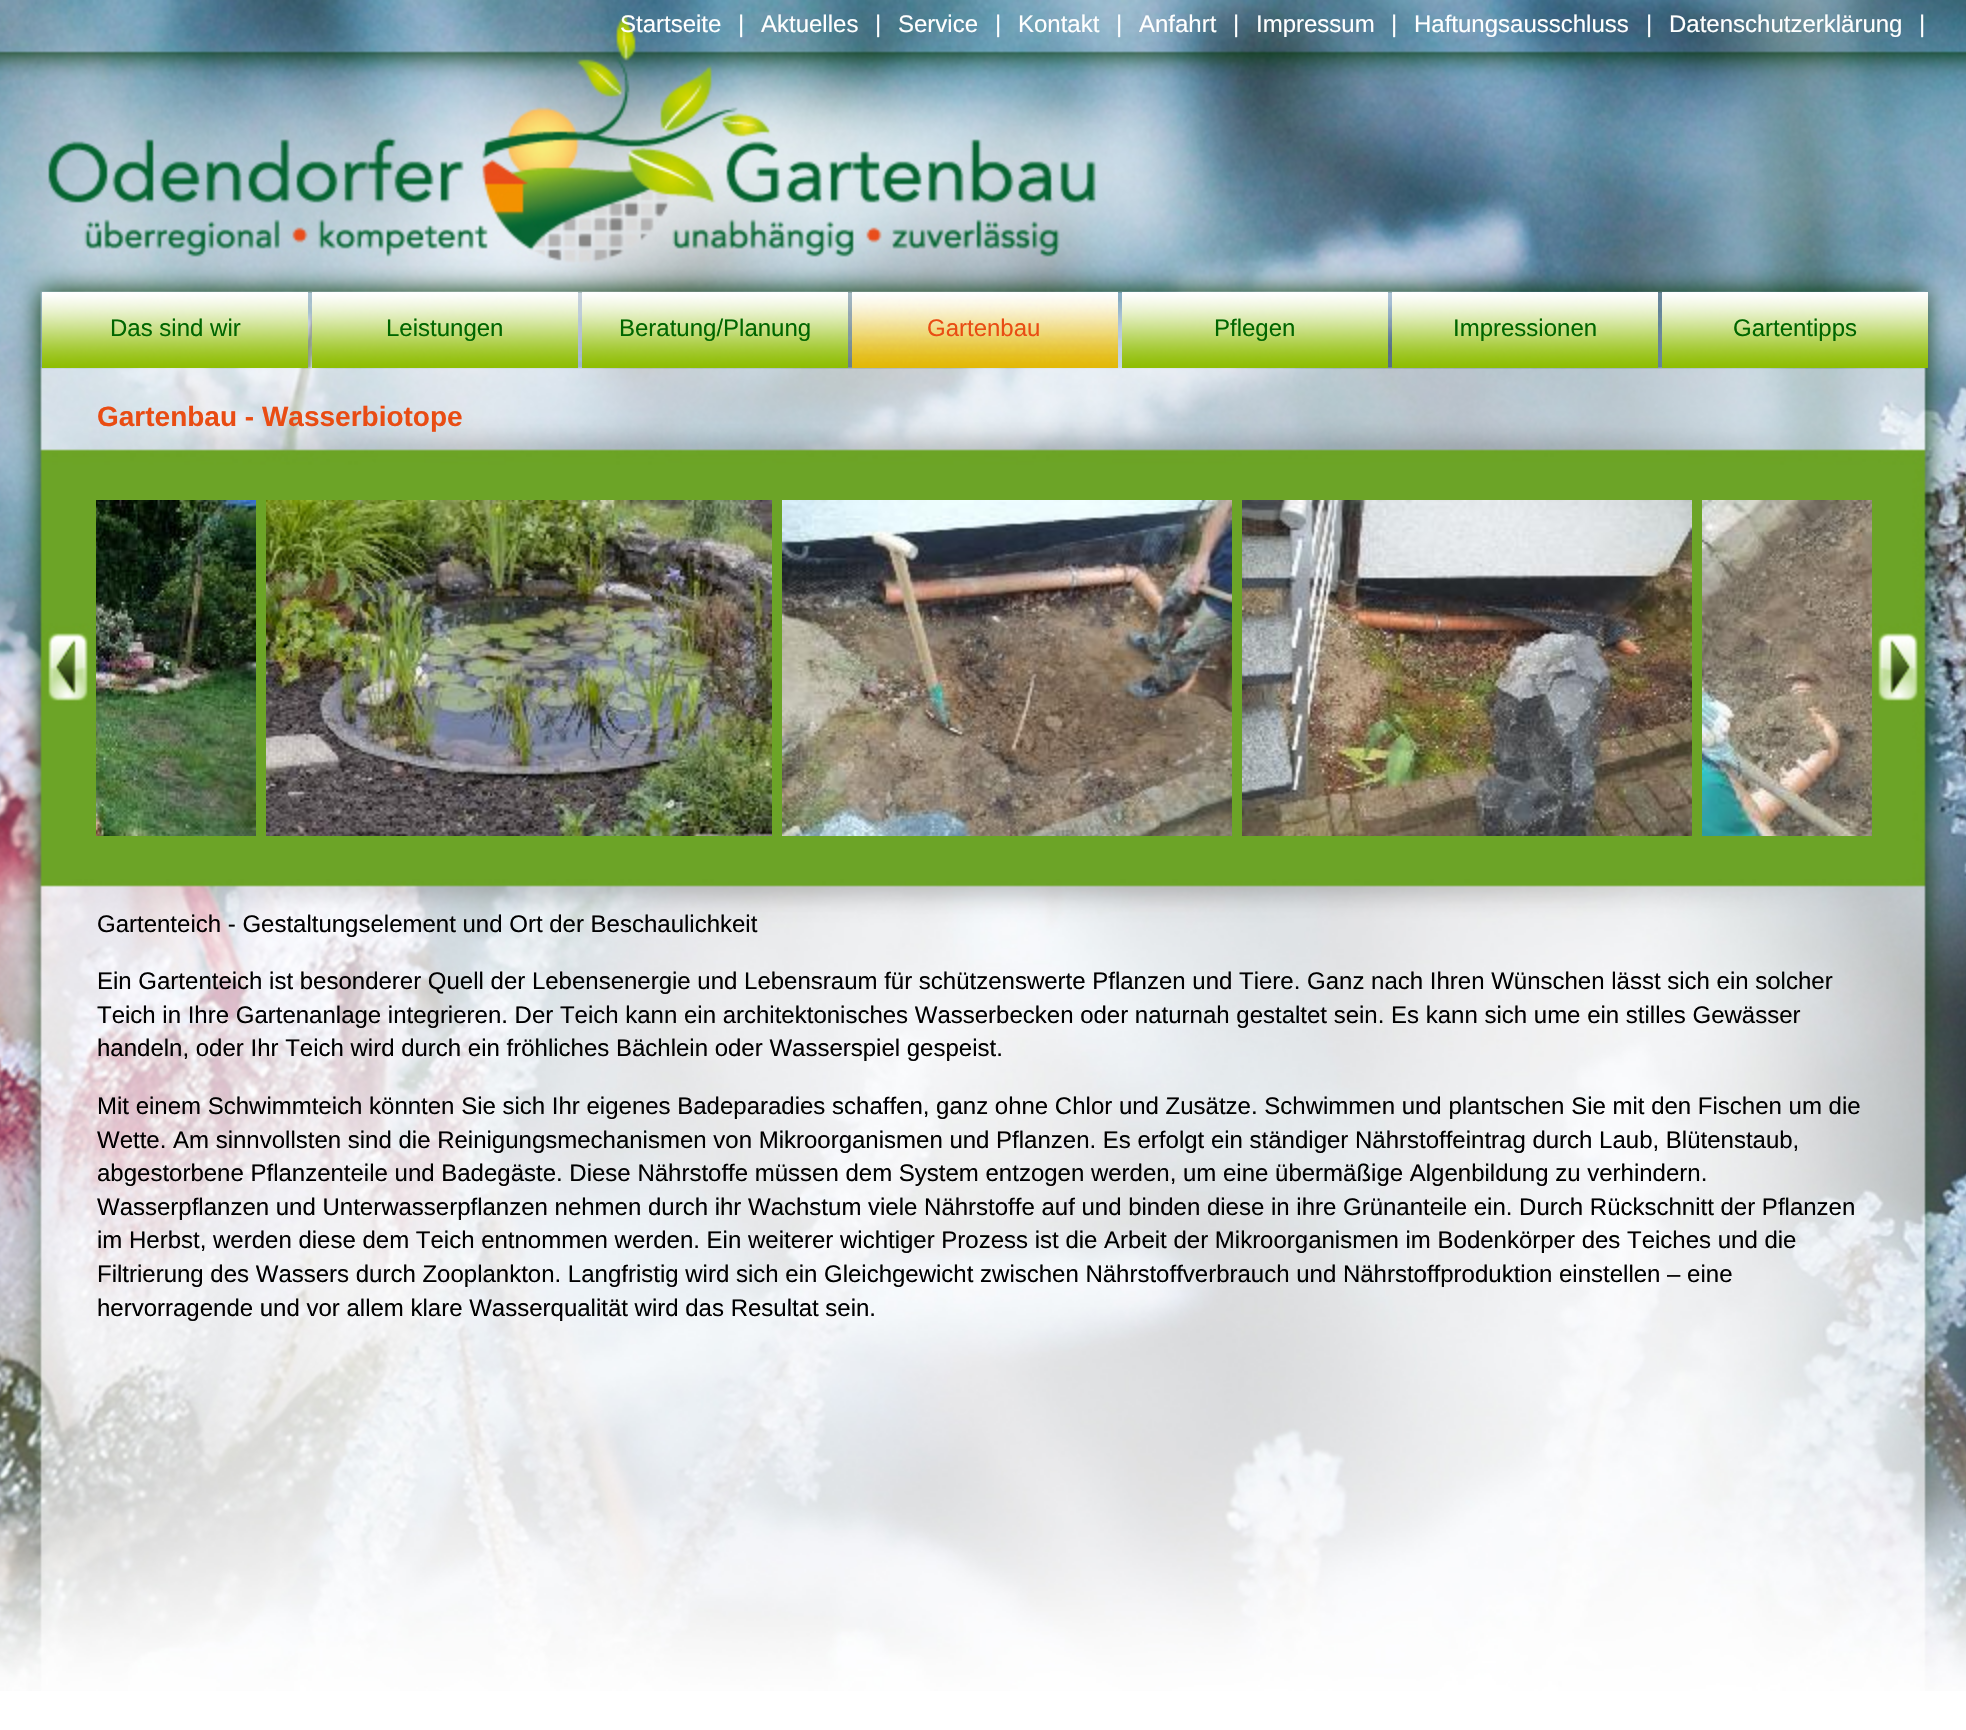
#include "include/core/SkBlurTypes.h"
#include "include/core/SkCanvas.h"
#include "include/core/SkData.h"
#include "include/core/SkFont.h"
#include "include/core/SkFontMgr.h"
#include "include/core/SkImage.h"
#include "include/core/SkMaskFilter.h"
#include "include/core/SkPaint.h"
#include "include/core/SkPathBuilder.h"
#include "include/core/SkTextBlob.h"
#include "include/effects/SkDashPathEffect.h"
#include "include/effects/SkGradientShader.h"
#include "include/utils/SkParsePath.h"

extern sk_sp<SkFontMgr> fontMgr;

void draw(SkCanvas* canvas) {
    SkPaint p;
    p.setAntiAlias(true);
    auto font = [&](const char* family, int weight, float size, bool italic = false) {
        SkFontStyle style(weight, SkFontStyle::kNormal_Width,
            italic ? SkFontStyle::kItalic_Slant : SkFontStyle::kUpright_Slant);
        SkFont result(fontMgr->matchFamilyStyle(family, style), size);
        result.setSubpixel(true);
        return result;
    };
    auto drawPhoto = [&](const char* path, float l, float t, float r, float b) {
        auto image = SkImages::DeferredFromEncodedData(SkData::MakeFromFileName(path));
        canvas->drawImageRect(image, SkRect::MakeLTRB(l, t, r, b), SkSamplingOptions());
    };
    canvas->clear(0xFFFFFFFF);
    drawPhoto("media/1.png", 0, 0, 1966, 1691);
    auto font1 = font("Liberation Sans", 400, 24);
    p.setColor(0xFFFFFFFF);
    {
        const struct { const char* s; float x, y; } items[] = {
            {"Startseite", 620, 32},
            {"|", 738, 32},
            {"Aktuelles", 761, 32},
            {"|", 875, 32},
            {"Service", 898, 32},
            {"|", 995, 32},
            {"Kontakt", 1018, 32},
            {"|", 1116, 32},
            {"Anfahrt", 1139, 32},
            {"|", 1233, 32},
            {"Impressum", 1256, 32},
            {"|", 1391, 32},
            {"Haftungsausschluss", 1414, 32},
            {"|", 1646, 32},
            {"Datenschutzerklärung", 1669, 32},
            {"|", 1919, 32},
        };
        for (auto [s, x, y] : items) {
            canvas->drawString(s, x, y, font1, p);
        }
    }
    drawPhoto("media/2.png", 42, 292, 308, 368);
    p.setColor(0xFF006600);
    canvas->drawString("Das sind wir", 110, 336, font1, p);
    drawPhoto("media/2.png", 312, 292, 578, 368);
    canvas->drawString("Leistungen", 386, 336, font1, p);
    drawPhoto("media/2.png", 582, 292, 848, 368);
    canvas->drawString("Beratung/Planung", 619, 336, font1, p);
    drawPhoto("media/3.png", 852, 292, 1118, 368);
    p.setColor(0xFFE94C13);
    canvas->drawString("Gartenbau", 927, 336, font1, p);
    drawPhoto("media/2.png", 1122, 292, 1388, 368);
    p.setColor(0xFF006600);
    canvas->drawString("Pflegen", 1214, 336, font1, p);
    drawPhoto("media/2.png", 1392, 292, 1658, 368);
    canvas->drawString("Impressionen", 1453, 336, font1, p);
    drawPhoto("media/2.png", 1662, 292, 1928, 368);
    canvas->drawString("Gartentipps", 1733, 336, font1, p);
    auto font2 = font("Liberation Sans", 700, 28);
    p.setColor(0xFFE94C13);
    canvas->drawString("Gartenbau - Wasserbiotope", 97, 426, font2, p);
    drawPhoto("media/4.png", 96, 500, 256, 836);
    drawPhoto("media/5.png", 266, 500, 772, 836);
    drawPhoto("media/6.png", 782, 500, 1232, 836);
    drawPhoto("media/7.png", 1242, 500, 1692, 836);
    drawPhoto("media/8.png", 1702, 500, 1872, 836);
    p.setColor(0xFF000000);
    {
        const struct { const char* s; float x, y; } items[] = {
            {"Gartenteich - Gestaltungselement und Ort der Beschaulichkeit", 97, 932},
            {"Ein Gartenteich ist besonderer Quell der Lebensenergie und Lebensraum für schützenswerte Pflanzen und Tiere. Ganz nach Ihren Wünschen lässt sich ein solcher", 97, 989},
            {"Teich in Ihre Gartenanlage integrieren. Der Teich kann ein architektonisches Wasserbecken oder naturnah gestaltet sein. Es kann sich ume ein stilles Gewässer", 97, 1023},
            {"handeln, oder Ihr Teich wird durch ein fröhliches Bächlein oder Wasserspiel gespeist.", 97, 1056},
            {"Mit einem Schwimmteich könnten Sie sich Ihr eigenes Badeparadies schaffen, ganz ohne Chlor und Zusätze. Schwimmen und plantschen Sie mit den Fischen um die", 97, 1114},
            {"Wette. Am sinnvollsten sind die Reinigungsmechanismen von Mikroorganismen und Pflanzen. Es erfolgt ein ständiger Nährstoffeintrag durch Laub, Blütenstaub,", 97, 1148},
            {"abgestorbene Pflanzenteile und Badegäste. Diese Nährstoffe müssen dem System entzogen werden, um eine übermäßige Algenbildung zu verhindern.", 97, 1181},
            {"Wasserpflanzen und Unterwasserpflanzen nehmen durch ihr Wachstum viele Nährstoffe auf und binden diese in ihre Grünanteile ein. Durch Rückschnitt der Pflanzen", 97, 1215},
            {"im Herbst, werden diese dem Teich entnommen werden. Ein weiterer wichtiger Prozess ist die Arbeit der Mikroorganismen im Bodenkörper des Teiches und die", 97, 1248},
            {"Filtrierung des Wassers durch Zooplankton. Langfristig wird sich ein Gleichgewicht zwischen Nährstoffverbrauch und Nährstoffproduktion einstellen – eine", 97, 1282},
            {"hervorragende und vor allem klare Wasserqualität wird das Resultat sein.", 97, 1316},
        };
        for (auto [s, x, y] : items) {
            canvas->drawString(s, x, y, font1, p);
        }
    }
}
